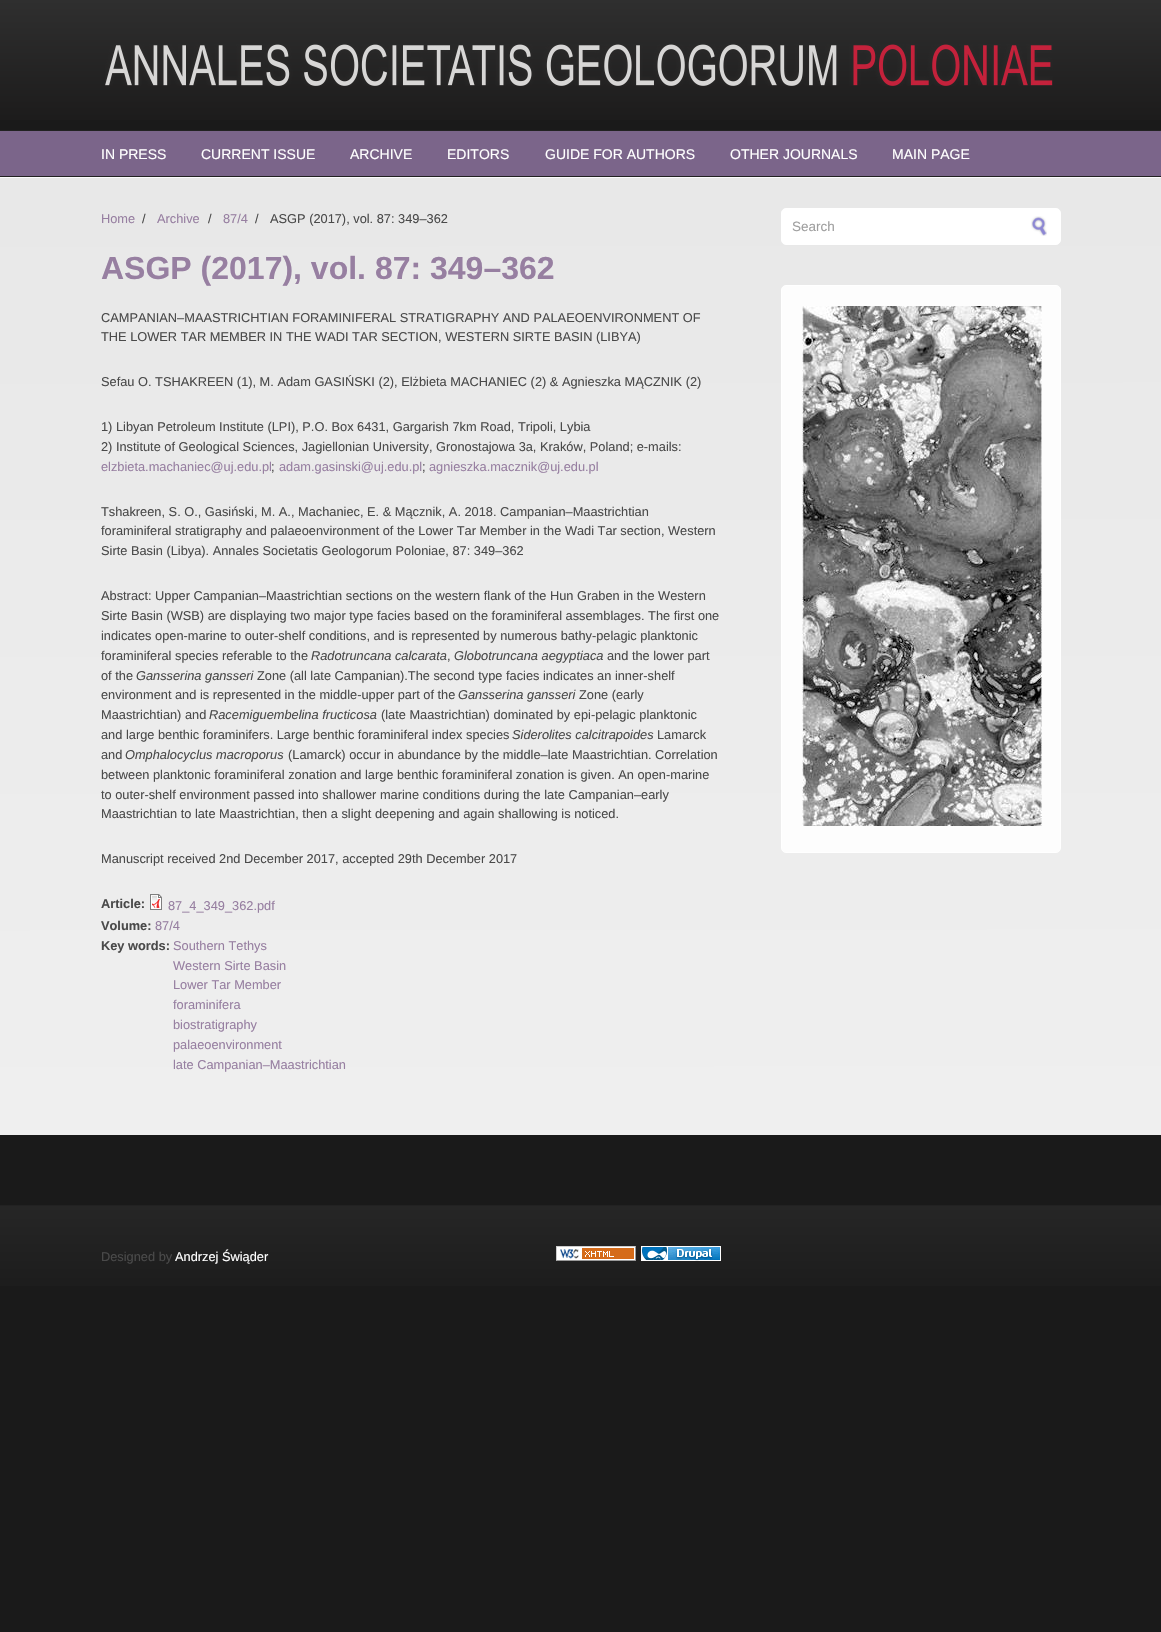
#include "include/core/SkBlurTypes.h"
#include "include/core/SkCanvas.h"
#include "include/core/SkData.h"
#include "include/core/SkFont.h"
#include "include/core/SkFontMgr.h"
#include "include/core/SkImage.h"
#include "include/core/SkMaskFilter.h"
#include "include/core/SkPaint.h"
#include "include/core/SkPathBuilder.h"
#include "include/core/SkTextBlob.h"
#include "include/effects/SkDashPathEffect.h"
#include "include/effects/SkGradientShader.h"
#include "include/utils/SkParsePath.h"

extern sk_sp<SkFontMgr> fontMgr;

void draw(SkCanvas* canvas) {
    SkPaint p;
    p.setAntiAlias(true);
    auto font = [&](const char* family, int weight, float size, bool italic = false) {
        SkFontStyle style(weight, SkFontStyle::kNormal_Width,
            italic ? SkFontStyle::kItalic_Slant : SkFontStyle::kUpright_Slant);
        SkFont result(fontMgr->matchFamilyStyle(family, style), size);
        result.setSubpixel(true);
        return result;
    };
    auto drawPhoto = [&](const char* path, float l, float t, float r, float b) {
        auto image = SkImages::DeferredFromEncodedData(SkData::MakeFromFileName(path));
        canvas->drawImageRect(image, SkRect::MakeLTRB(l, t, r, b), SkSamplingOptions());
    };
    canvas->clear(0xFF1A1A1A);
    {
        const SkColor colors[] = {0xFF2F2F2F, 0xFF1B1A1A};
        const float stops[] = {0, 1};
        const SkPoint ends[] = {{581, 0}, {581, 130}};
        p.setShader(SkGradientShader::MakeLinear(ends, colors, stops, 2, SkTileMode::kClamp));
        p.setAlpha(255);
    }
    canvas->drawRect(SkRect::MakeLTRB(0, 0, 1161, 120), p);
    drawPhoto("media/1.png", 105, 44, 1053, 86);
    p.setShader(nullptr);
    {
        const struct { float l, t, r, b; SkColor color; } items[] = {
            {0, 131, 1161, 176, 0xFF7B658A},
            {0, 130, 1161, 131, 0xFF222222},
            {0, 176, 1161, 177, 0xFF222222},
        };
        for (auto [l, t, r, b, color] : items) {
            p.setColor(color);
            canvas->drawRect(SkRect::MakeLTRB(l, t, r, b), p);
        }
    }
    auto font1 = font("Liberation Sans", 400, 14);
    p.setColor(0xFFFFFFFF);
    {
        const struct { const char* s; float x, y; } items[] = {
            {"IN PRESS", 101, 159},
            {"CURRENT ISSUE", 201, 159},
            {"ARCHIVE", 350, 159},
            {"EDITORS", 447, 159},
            {"GUIDE FOR AUTHORS", 545, 159},
            {"OTHER JOURNALS", 730, 159},
            {"MAIN PAGE", 892, 159},
        };
        for (auto [s, x, y] : items) {
            canvas->drawString(s, x, y, font1, p);
        }
    }
    p.setColor(0xFFFCFCFC);
    canvas->drawRect(SkRect::MakeLTRB(0, 177, 1161, 178), p);
    {
        const SkColor colors[] = {0xFFE8E8E8, 0xFFEFEFEF};
        const float stops[] = {0, 1};
        const SkPoint ends[] = {{580, 178}, {581, 1135}};
        p.setShader(SkGradientShader::MakeLinear(ends, colors, stops, 2, SkTileMode::kClamp));
        p.setAlpha(255);
    }
    canvas->drawRect(SkRect::MakeLTRB(0, 178, 1161, 1135), p);
    auto font2 = font("Liberation Sans", 400, 12.8f);
    p.setShader(nullptr);
    p.setColor(0xFF977FA1);
    canvas->drawString("Home", 101, 223, font2, p);
    p.setColor(0xFF4A4A4A);
    canvas->drawString("/", 142, 223, font2, p);
    p.setColor(0xFF977FA1);
    canvas->drawString("Archive", 157, 223, font2, p);
    p.setColor(0xFF4A4A4A);
    canvas->drawString("/", 208, 223, font2, p);
    p.setColor(0xFF977FA1);
    canvas->drawString("87/4", 223, 223, font2, p);
    p.setColor(0xFF4A4A4A);
    canvas->drawString("/", 255, 223, font2, p);
    canvas->drawString("ASGP (2017), vol. 87: 349–362", 270, 223, font2, p);
    auto font3 = font("Liberation Sans", 700, 32);
    p.setColor(0xFF977FA1);
    canvas->drawString("ASGP (2017), vol. 87: 349–362", 101, 279, font3, p);
    p.setColor(0xFF4A4A4A);
    {
        const struct { const char* s; float x, y; } items[] = {
            {"CAMPANIAN–MAASTRICHTIAN FORAMINIFERAL STRATIGRAPHY AND PALAEOENVIRONMENT OF", 101, 322},
            {"THE LOWER TAR MEMBER IN THE WADI TAR SECTION, WESTERN SIRTE BASIN (LIBYA)", 101, 341},
            {"Sefau O. TSHAKREEN (1), M. Adam GASIŃSKI (2), Elżbieta MACHANIEC (2) & Agnieszka MĄCZNIK (2)", 101, 386},
            {"1) Libyan Petroleum Institute (LPI), P.O. Box 6431, Gargarish 7km Road, Tripoli, Lybia", 101, 431},
            {"2) Institute of Geological Sciences, Jagiellonian University, Gronostajowa 3a, Kraków, Poland; e-mails:", 101, 451},
        };
        for (auto [s, x, y] : items) {
            canvas->drawString(s, x, y, font2, p);
        }
    }
    p.setColor(0xFF977FA1);
    canvas->drawString("elzbieta.machaniec@uj.edu.pl", 101, 471, font2, p);
    p.setColor(0xFF4A4A4A);
    canvas->drawString(";", 271, 471, font2, p);
    p.setColor(0xFF977FA1);
    canvas->drawString("adam.gasinski@uj.edu.pl", 279, 471, font2, p);
    p.setColor(0xFF4A4A4A);
    canvas->drawString(";", 422, 471, font2, p);
    p.setColor(0xFF977FA1);
    canvas->drawString("agnieszka.macznik@uj.edu.pl", 429, 471, font2, p);
    p.setColor(0xFF4A4A4A);
    {
        const struct { const char* s; float x, y; } items[] = {
            {"Tshakreen, S. O., Gasiński, M. A., Machaniec, E. & Mącznik, A. 2018. Campanian–Maastrichtian", 101, 516},
            {"foraminiferal stratigraphy and palaeoenvironment of the Lower Tar Member in the Wadi Tar section, Western", 101, 535},
            {"Sirte Basin (Libya). Annales Societatis Geologorum Poloniae, 87: 349–362", 101, 555},
            {"Abstract: Upper Campanian–Maastrichtian sections on the western flank of the Hun Graben in the Western", 101, 600},
            {"Sirte Basin (WSB) are displaying two major type facies based on the foraminiferal assemblages. The first one", 101, 620},
            {"indicates open-marine to outer-shelf conditions, and is represented by numerous bathy-pelagic planktonic", 101, 640},
            {"foraminiferal species referable to the", 101, 660},
        };
        for (auto [s, x, y] : items) {
            canvas->drawString(s, x, y, font2, p);
        }
    }
    auto font4 = font("Liberation Sans", 400, 12.8f, true);
    canvas->drawString("Radotruncana calcarata", 311, 660, font4, p);
    canvas->drawString(",", 447, 660, font2, p);
    canvas->drawString("Globotruncana aegyptiaca", 454, 660, font4, p);
    canvas->drawString("and the lower part", 607, 660, font2, p);
    canvas->drawString("of the", 101, 680, font2, p);
    canvas->drawString("Gansserina gansseri", 136, 680, font4, p);
    canvas->drawString("Zone (all late Campanian).The second type facies indicates an inner-shelf", 257, 680, font2, p);
    canvas->drawString("environment and is represented in the middle-upper part of the", 101, 699, font2, p);
    canvas->drawString("Gansserina gansseri", 458, 699, font4, p);
    canvas->drawString("Zone (early", 579, 699, font2, p);
    canvas->drawString("Maastrichtian) and", 101, 719, font2, p);
    canvas->drawString("Racemiguembelina fructicosa", 209, 719, font4, p);
    canvas->drawString("(late Maastrichtian) dominated by epi-pelagic planktonic", 381, 719, font2, p);
    canvas->drawString("and large benthic foraminifers. Large benthic foraminiferal index species", 101, 739, font2, p);
    canvas->drawString("Siderolites calcitrapoides", 512, 739, font4, p);
    canvas->drawString("Lamarck", 657, 739, font2, p);
    canvas->drawString("and", 101, 759, font2, p);
    canvas->drawString("Omphalocyclus macroporus", 125, 759, font4, p);
    {
        const struct { const char* s; float x, y; } items[] = {
            {"(Lamarck) occur in abundance by the middle–late Maastrichtian. Correlation", 288, 759},
            {"between planktonic foraminiferal zonation and large benthic foraminiferal zonation is given. An open-marine", 101, 779},
            {"to outer-shelf environment passed into shallower marine conditions during the late Campanian–early", 101, 799},
            {"Maastrichtian to late Maastrichtian, then a slight deepening and again shallowing is noticed.", 101, 818},
            {"Manuscript received 2nd December 2017, accepted 29th December 2017", 101, 863},
        };
        for (auto [s, x, y] : items) {
            canvas->drawString(s, x, y, font2, p);
        }
    }
    auto font5 = font("Liberation Sans", 700, 12.8f);
    canvas->drawString("Article:", 101, 908, font5, p);
    drawPhoto("media/2.png", 150, 894, 162, 910);
    p.setColor(0xFF977FA1);
    canvas->drawString("87_4_349_362.pdf", 168, 910, font2, p);
    p.setColor(0xFF4A4A4A);
    canvas->drawString("Volume:", 101, 930, font5, p);
    p.setColor(0xFF977FA1);
    canvas->drawString("87/4", 155, 930, font2, p);
    p.setColor(0xFF4A4A4A);
    canvas->drawString("Key words:", 101, 950, font5, p);
    p.setColor(0xFF977FA1);
    {
        const struct { const char* s; float x, y; } items[] = {
            {"Southern Tethys", 173, 950},
            {"Western Sirte Basin", 173, 970},
            {"Lower Tar Member", 173, 989},
            {"foraminifera", 173, 1009},
            {"biostratigraphy", 173, 1029},
            {"palaeoenvironment", 173, 1049},
            {"late Campanian–Maastrichtian", 173, 1069},
        };
        for (auto [s, x, y] : items) {
            canvas->drawString(s, x, y, font2, p);
        }
    }
    p.setColor(0xFFFFFFFF);
    canvas->drawRoundRect(SkRect::MakeLTRB(781.5f, 208.5f, 1060.5f, 244.5f), 4.5f, 4.5f, p);
    p.setStyle(SkPaint::kStroke_Style);
    p.setStrokeWidth(1);
    canvas->drawRoundRect(SkRect::MakeLTRB(781.5f, 208.5f, 1060.5f, 244.5f), 4.5f, 4.5f, p);
    auto font6 = font("Liberation Sans", 400, 13.5f);
    p.setStyle(SkPaint::kFill_Style);
    p.setColor(0xFF9F9F9F);
    canvas->drawString("Search", 792, 231, font6, p);
    drawPhoto("media/3.png", 1031, 216, 1047, 236);
    p.setColor(0xFFFDFDFD);
    canvas->drawRoundRect(SkRect::MakeLTRB(781.5f, 285.5f, 1060.5f, 852.5f), 4.5f, 4.5f, p);
    p.setStyle(SkPaint::kStroke_Style);
    p.setColor(0xFFFFFFFF);
    canvas->drawRoundRect(SkRect::MakeLTRB(781.5f, 285.5f, 1060.5f, 852.5f), 4.5f, 4.5f, p);
    drawPhoto("media/4.png", 802, 306, 1042, 826);
    p.setStyle(SkPaint::kFill_Style);
    {
        const SkColor colors[] = {0xFF262626, 0xFF1A1A1A};
        const float stops[] = {0, 1};
        const SkPoint ends[] = {{581, 1206}, {581, 1307}};
        p.setShader(SkGradientShader::MakeLinear(ends, colors, stops, 2, SkTileMode::kClamp));
        p.setAlpha(255);
    }
    canvas->drawRect(SkRect::MakeLTRB(0, 1206, 1161, 1286), p);
    p.setShader(nullptr);
    p.setColor(0xFF222222);
    canvas->drawRect(SkRect::MakeLTRB(0, 1205, 1161, 1206), p);
    p.setColor(0xFF4A4A4A);
    canvas->drawString("Designed by", 101, 1261, font2, p);
    p.setColor(0xFFFFFFFF);
    canvas->drawString("Andrzej Świąder", 175, 1261, font2, p);
    drawPhoto("media/5.png", 556, 1246, 636, 1261);
    drawPhoto("media/6.png", 641, 1246, 721, 1261);
}
